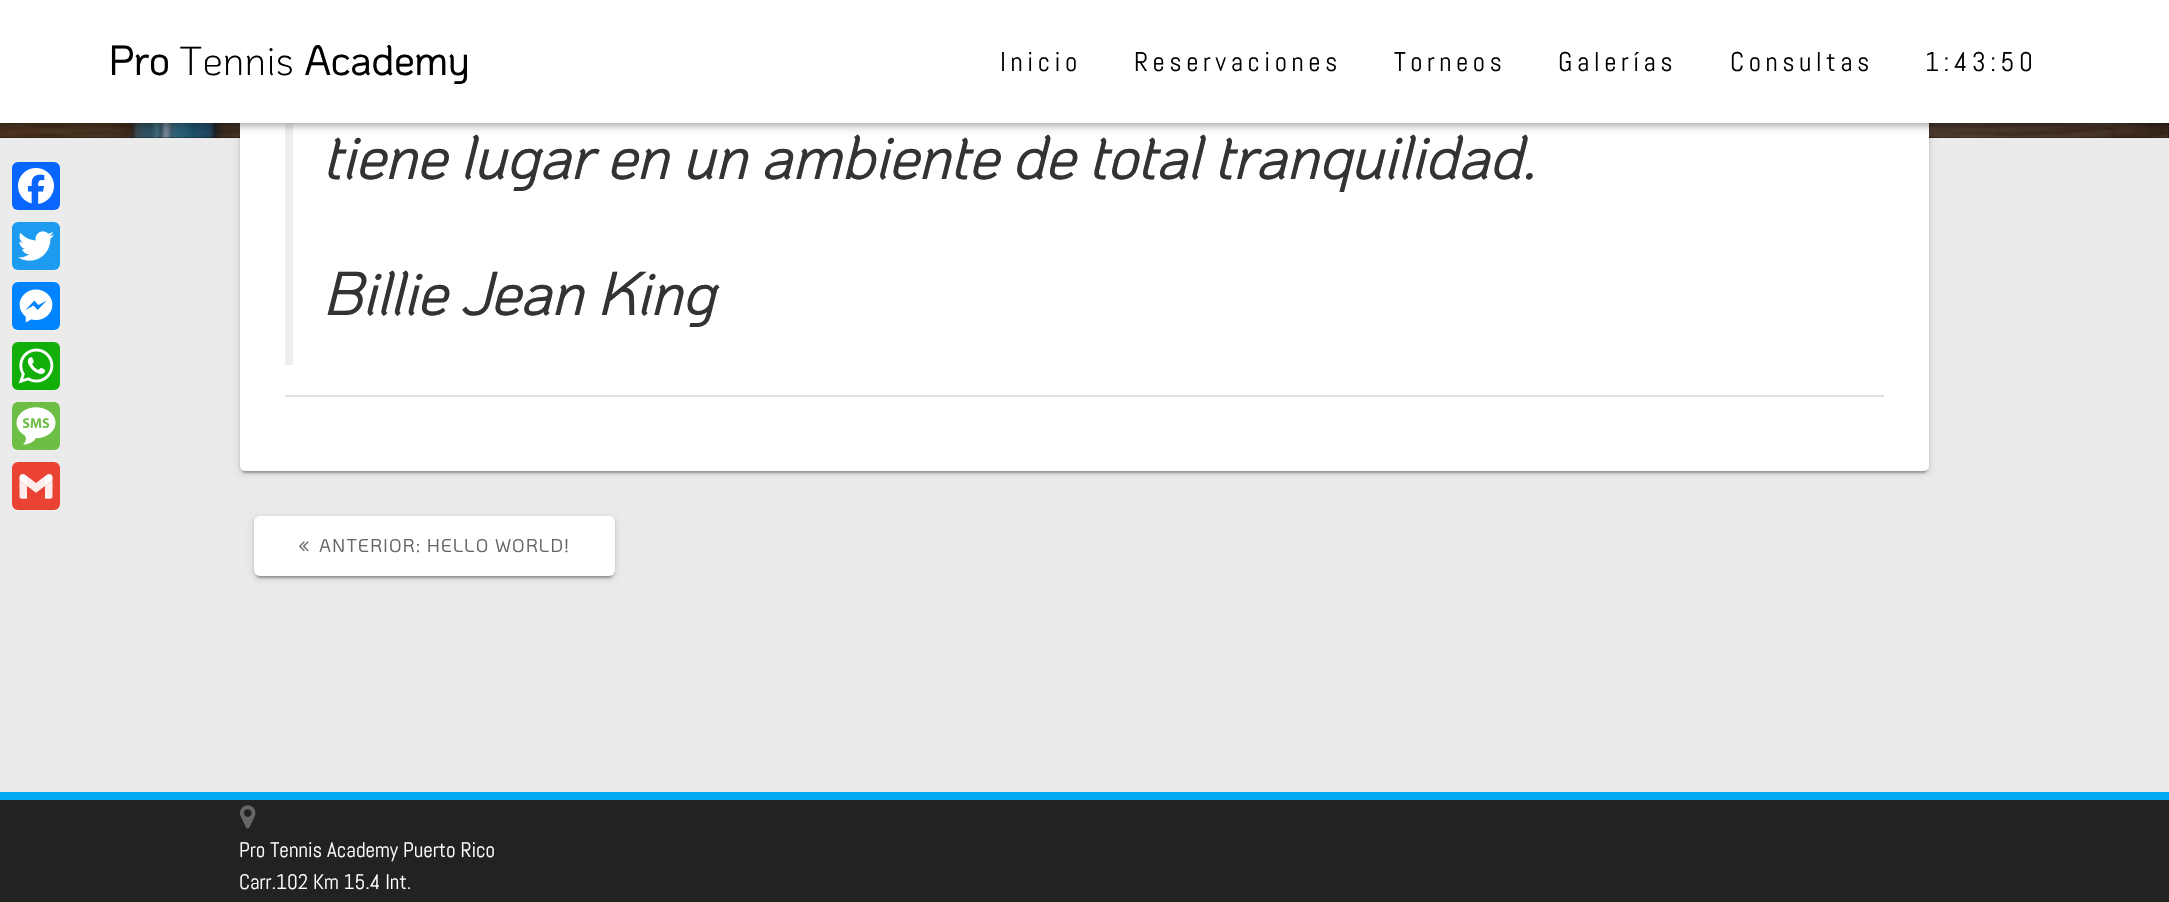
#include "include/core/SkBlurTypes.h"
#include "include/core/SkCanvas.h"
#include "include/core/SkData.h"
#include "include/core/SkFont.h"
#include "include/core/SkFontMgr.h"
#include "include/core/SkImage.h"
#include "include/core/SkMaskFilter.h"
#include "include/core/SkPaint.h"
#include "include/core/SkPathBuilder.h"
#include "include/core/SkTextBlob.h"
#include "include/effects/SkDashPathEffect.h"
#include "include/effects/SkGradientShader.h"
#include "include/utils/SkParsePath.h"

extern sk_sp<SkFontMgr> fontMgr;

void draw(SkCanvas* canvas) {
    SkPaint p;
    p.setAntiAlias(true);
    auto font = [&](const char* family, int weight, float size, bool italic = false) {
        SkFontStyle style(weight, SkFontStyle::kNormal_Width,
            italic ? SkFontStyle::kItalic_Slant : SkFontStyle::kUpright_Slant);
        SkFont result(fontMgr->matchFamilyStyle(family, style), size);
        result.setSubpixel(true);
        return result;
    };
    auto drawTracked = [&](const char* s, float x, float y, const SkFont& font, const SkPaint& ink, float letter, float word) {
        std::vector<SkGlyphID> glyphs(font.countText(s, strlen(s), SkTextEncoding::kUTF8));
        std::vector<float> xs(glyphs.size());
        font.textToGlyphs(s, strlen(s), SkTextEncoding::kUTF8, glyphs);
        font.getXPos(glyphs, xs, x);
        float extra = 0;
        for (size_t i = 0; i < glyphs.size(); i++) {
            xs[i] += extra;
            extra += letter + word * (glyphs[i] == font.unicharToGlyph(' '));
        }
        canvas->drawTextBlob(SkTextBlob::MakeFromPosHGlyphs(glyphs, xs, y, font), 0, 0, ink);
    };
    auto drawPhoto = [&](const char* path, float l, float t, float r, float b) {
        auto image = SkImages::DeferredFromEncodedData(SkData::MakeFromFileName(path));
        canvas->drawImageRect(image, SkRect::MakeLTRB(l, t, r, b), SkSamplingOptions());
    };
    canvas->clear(0xFF222222);
    p.setColor(0xFF000000);
    canvas->drawRect(SkRect::MakeLTRB(0, 123, 2169, 138), p);
    drawPhoto("media/1.png", 0, 123, 2169, 138);
    p.setColor(0x66000000);
    canvas->drawRect(SkRect::MakeLTRB(0, 123, 2169, 138), p);
    p.setColor(0xFFEBEBEB);
    canvas->drawRect(SkRect::MakeLTRB(0, 138, 2169, 792), p);
    p.setColor(0x1F000000);
    p.setMaskFilter(SkMaskFilter::MakeBlur(kNormal_SkBlurStyle, 4));
    canvas->drawRoundRect(SkRect::MakeLTRB(240, -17, 1929, 473), 5, 5, p);
    p.setMaskFilter(nullptr);
    p.setColor(0x33000000);
    p.setMaskFilter(SkMaskFilter::MakeBlur(kNormal_SkBlurStyle, 1));
    canvas->drawRoundRect(SkRect::MakeLTRB(243, -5, 1926, 473), 1.5f, 1.5f, p);
    p.setMaskFilter(nullptr);
    p.setColor(0x24000000);
    p.setMaskFilter(SkMaskFilter::MakeBlur(kNormal_SkBlurStyle, 1.5f));
    canvas->drawRoundRect(SkRect::MakeLTRB(240, -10, 1929, 473), 5, 5, p);
    p.setMaskFilter(nullptr);
    p.setColor(0xFFFFFFFF);
    canvas->drawRoundRect(SkRect::MakeLTRB(240, -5, 1929, 471), 5, 5, p);
    p.setColor(0xFFEEEEEE);
    canvas->drawRect(SkRect::MakeLTRB(285, 123, 293, 365), p);
    p.setColor(0x54000000);
    p.setMaskFilter(SkMaskFilter::MakeBlur(kNormal_SkBlurStyle, 4));
    canvas->drawRect(SkRect::MakeLTRB(-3, -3, 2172, 126), p);
    p.setMaskFilter(nullptr);
    p.setColor(0xFFFFFFFF);
    canvas->drawRect(SkRect::MakeLTRB(0, 0, 2169, 123), p);
    auto font1 = font("KoHo", 700, 40.5f);
    p.setColor(0xFF000000);
    canvas->drawString("Pro", 108, 75, font1, p);
    auto font2 = font("KoHo", 300, 40.5f);
    canvas->drawString("Tennis", 179, 75, font2, p);
    canvas->drawString("Academy", 304, 75, font1, p);
    auto font3 = font("Abel", 400, 27);
    {
        const struct { const char* s; float x, y; } items[] = {
            {"Inicio", 1000, 71},
            {"Reservaciones", 1134, 71},
            {"Torneos", 1394, 71},
            {"Galerías", 1558, 71},
            {"Consultas", 1730, 71},
            {"1:43:50", 1925, 71},
        };
        for (auto [s, x, y] : items) {
            drawTracked(s, x, y, font3, p, 4.5f, 0);
        }
    }
    p.setColor(0xFF0866FF);
    canvas->drawRoundRect(SkRect::MakeLTRB(12, 162, 60, 210), 6, 6, p);
    drawPhoto("media/2.png", 18, 168, 54, 204);
    p.setColor(0xFF1D9BF0);
    canvas->drawRoundRect(SkRect::MakeLTRB(12, 222, 60, 270), 6, 6, p);
    drawPhoto("media/3.png", 18, 231, 54, 261);
    p.setColor(0xFF0084FF);
    canvas->drawRoundRect(SkRect::MakeLTRB(12, 282, 60, 330), 6, 6, p);
    drawPhoto("media/4.png", 19, 289, 53, 323);
    p.setColor(0xFF12AF0A);
    canvas->drawRoundRect(SkRect::MakeLTRB(12, 342, 60, 390), 6, 6, p);
    drawPhoto("media/5.png", 18, 348, 54, 384);
    p.setColor(0xFF6CBE45);
    canvas->drawRoundRect(SkRect::MakeLTRB(12, 402, 60, 450), 6, 6, p);
    drawPhoto("media/6.png", 16, 407, 56, 445);
    p.setColor(0xFFEA4335);
    canvas->drawRoundRect(SkRect::MakeLTRB(12, 462, 60, 510), 6, 6, p);
    drawPhoto("media/7.png", 19, 474, 53, 499);
    p.setColor(0xFFE0E0E0);
    canvas->drawRect(SkRect::MakeLTRB(285, 395, 1884, 397), p);
    auto font4 = font("KoHo", 700, 59.4f, true);
    p.setColor(0xFF333333);
    canvas->drawString("tiene lugar en un ambiente de total tranquilidad.", 322, 179, font4, p);
    canvas->drawString("Billie Jean King", 322, 315, font4, p);
    p.setColor(0x1F000000);
    p.setMaskFilter(SkMaskFilter::MakeBlur(kNormal_SkBlurStyle, 4));
    canvas->drawRoundRect(SkRect::MakeLTRB(254, 518, 615, 578), 6, 6, p);
    p.setMaskFilter(nullptr);
    p.setColor(0x33000000);
    p.setMaskFilter(SkMaskFilter::MakeBlur(kNormal_SkBlurStyle, 1));
    canvas->drawRoundRect(SkRect::MakeLTRB(257, 524, 612, 578), 3, 3, p);
    p.setMaskFilter(nullptr);
    p.setColor(0x24000000);
    p.setMaskFilter(SkMaskFilter::MakeBlur(kNormal_SkBlurStyle, 1.5f));
    canvas->drawRoundRect(SkRect::MakeLTRB(254, 518, 615, 578), 6, 6, p);
    p.setMaskFilter(nullptr);
    p.setColor(0xFFFFFFFF);
    canvas->drawRoundRect(SkRect::MakeLTRB(254, 516, 615, 576), 6, 6, p);
    drawPhoto("media/8.png", 299, 541, 309, 552);
    auto font5 = font("KoHo", 700, 17.75f);
    p.setColor(0xFF666666);
    drawTracked("ANTERIOR: HELLO WORLD!", 319, 552, font5, p, 1.5f, 0);
    p.setColor(0xFF03A8F4);
    canvas->drawRect(SkRect::MakeLTRB(0, 792, 2169, 800), p);
    drawPhoto("media/9.png", 240, 805, 256, 829);
    auto font6 = font("Abel", 400, 21);
    p.setColor(0xFFFFFFFF);
    canvas->drawString("Pro Tennis Academy Puerto Rico", 239, 857, font6, p);
    canvas->drawString("Carr.102 Km 15.4 Int.", 239, 889, font6, p);
}
